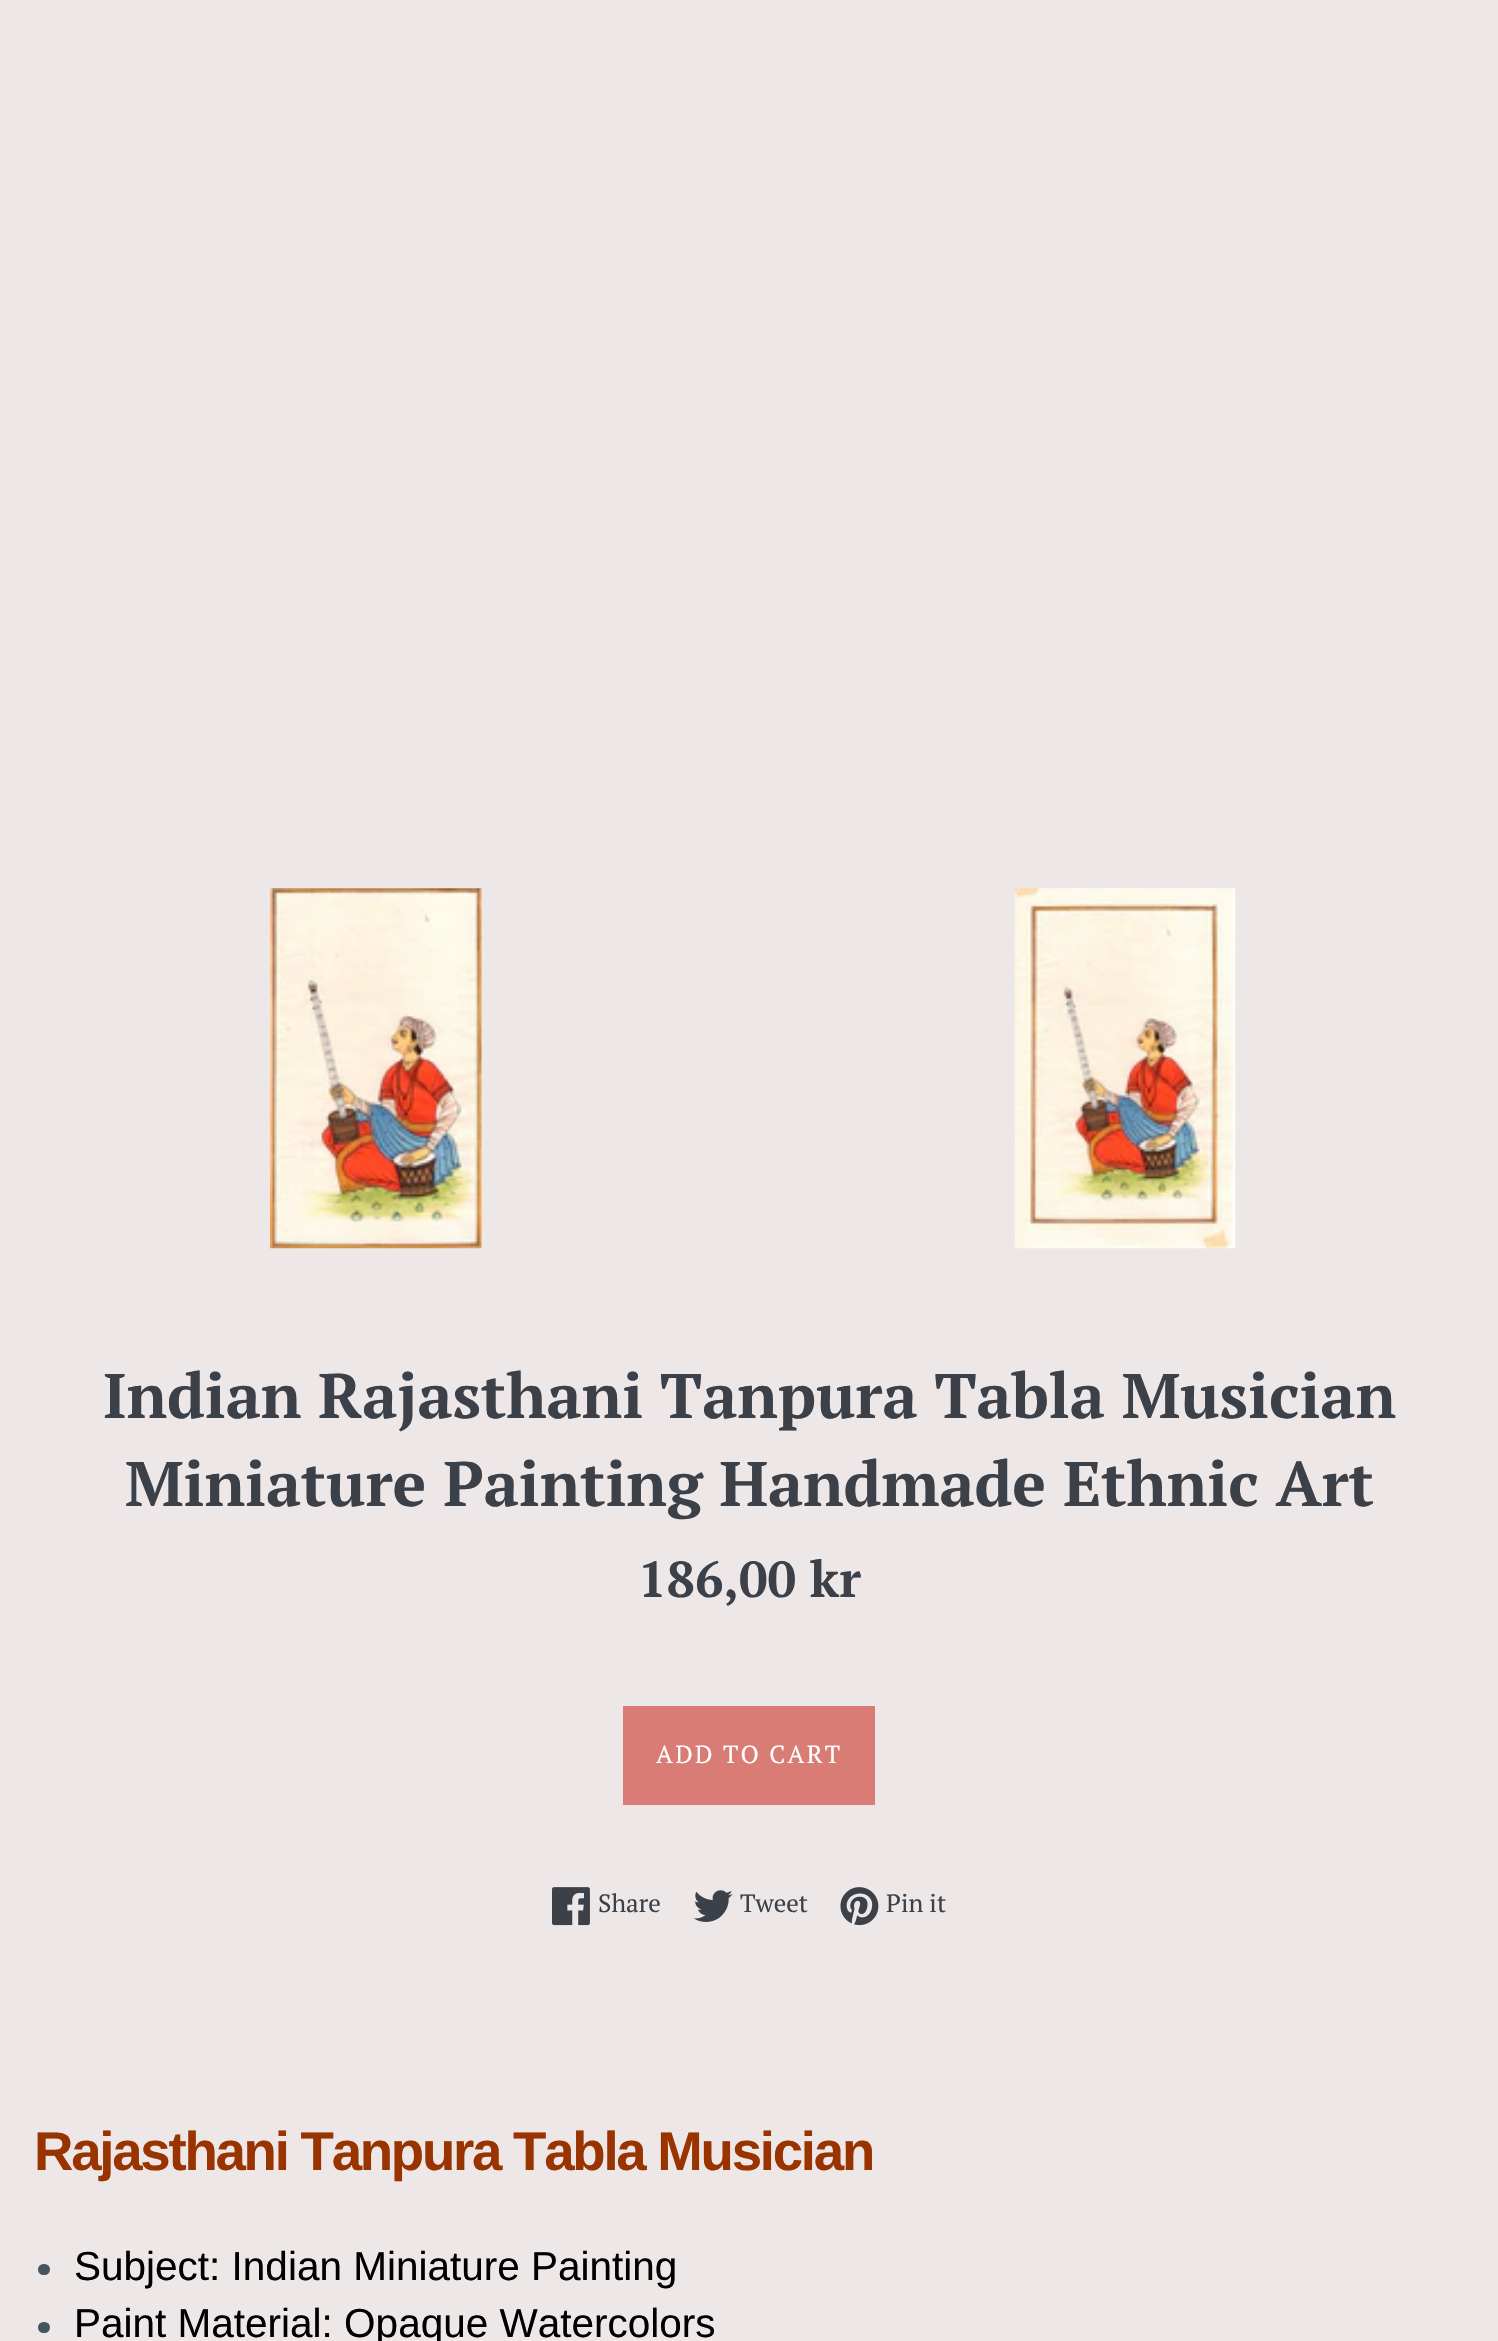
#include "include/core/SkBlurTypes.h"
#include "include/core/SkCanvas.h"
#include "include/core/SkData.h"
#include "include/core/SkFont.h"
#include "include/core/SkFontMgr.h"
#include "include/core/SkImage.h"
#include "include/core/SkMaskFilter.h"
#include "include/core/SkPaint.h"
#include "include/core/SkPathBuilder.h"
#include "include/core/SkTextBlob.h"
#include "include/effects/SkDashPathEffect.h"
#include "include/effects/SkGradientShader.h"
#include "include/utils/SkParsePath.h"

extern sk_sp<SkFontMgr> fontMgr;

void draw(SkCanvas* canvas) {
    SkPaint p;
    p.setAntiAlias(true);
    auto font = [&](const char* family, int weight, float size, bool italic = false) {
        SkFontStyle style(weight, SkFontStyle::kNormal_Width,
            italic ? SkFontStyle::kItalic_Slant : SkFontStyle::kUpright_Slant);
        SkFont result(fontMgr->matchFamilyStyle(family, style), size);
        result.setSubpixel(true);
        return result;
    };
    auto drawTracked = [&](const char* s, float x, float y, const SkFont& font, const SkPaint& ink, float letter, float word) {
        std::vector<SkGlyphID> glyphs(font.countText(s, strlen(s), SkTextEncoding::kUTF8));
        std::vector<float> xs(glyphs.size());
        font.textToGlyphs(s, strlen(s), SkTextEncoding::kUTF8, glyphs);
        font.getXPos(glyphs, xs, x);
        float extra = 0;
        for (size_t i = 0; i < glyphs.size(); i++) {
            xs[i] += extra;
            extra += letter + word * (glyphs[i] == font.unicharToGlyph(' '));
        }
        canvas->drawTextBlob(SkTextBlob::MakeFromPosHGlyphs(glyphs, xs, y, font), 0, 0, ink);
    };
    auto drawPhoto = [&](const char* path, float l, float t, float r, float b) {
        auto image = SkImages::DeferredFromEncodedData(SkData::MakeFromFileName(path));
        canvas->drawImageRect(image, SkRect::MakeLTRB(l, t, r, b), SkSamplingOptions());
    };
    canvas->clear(0xFFEDE8E7);
    drawPhoto("media/1.png", 270, 888, 482, 1249);
    drawPhoto("media/2.png", 1014, 888, 1236, 1249);
    auto font1 = font("PT Serif", 700, 63);
    p.setColor(0xFF3C4049);
    canvas->drawString("Indian Rajasthani Tanpura Tabla Musician", 103, 1418, font1, p);
    canvas->drawString("Miniature Painting Handmade Ethnic Art", 125, 1506, font1, p);
    auto font2 = font("PT Serif", 700, 50.5f);
    canvas->drawString("186,00 kr", 638, 1597, font2, p);
    p.setColor(0xFFD97C76);
    canvas->drawRect(SkRect::MakeLTRB(623, 1706, 875, 1805), p);
    auto font3 = font("PT Serif", 400, 24.75f);
    p.setColor(0xFFFFFFFF);
    drawTracked("ADD TO CART", 656, 1763, font3, p, 2.25f, 0);
    drawPhoto("media/3.png", 552, 1887, 590, 1926);
    auto font4 = font("PT Serif", 400, 25);
    p.setColor(0xFF3C4049);
    canvas->drawString("Share", 598, 1912, font4, p);
    drawPhoto("media/4.png", 693, 1890, 733, 1922);
    canvas->drawString("Tweet", 740, 1912, font4, p);
    drawPhoto("media/5.png", 840, 1887, 879, 1926);
    canvas->drawString("Pin it", 886, 1912, font4, p);
    auto font5 = font("Liberation Sans", 700, 54.6f);
    p.setColor(0xFF993300);
    drawTracked("Rajasthani Tanpura Tabla Musician", 34, 2170, font5, p, -2.25f, 0);
    p.setColor(0xFF47565E);
    canvas->drawRoundRect(SkRect::MakeLTRB(38, 2264, 50, 2275), 5.5f, 5.5f, p);
    auto font6 = font("Liberation Sans", 400, 40.5f);
    p.setColor(0xFF000000);
    canvas->drawString("Subject: Indian Miniature Painting", 74, 2280, font6, p);
    p.setColor(0xFF47565E);
    canvas->drawRoundRect(SkRect::MakeLTRB(38, 2322, 50, 2333), 5.5f, 5.5f, p);
    p.setColor(0xFF000000);
    canvas->drawString("Paint Material: Opaque Watercolors", 74, 2337, font6, p);
}
